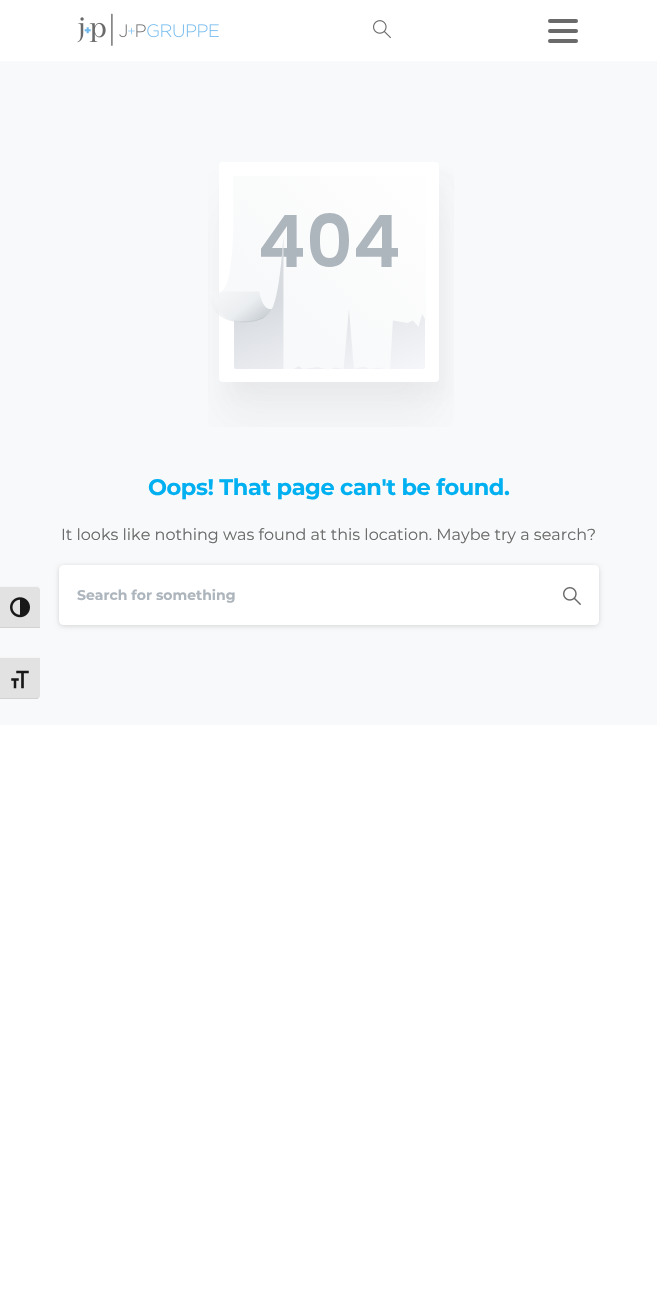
#include "include/core/SkBlurTypes.h"
#include "include/core/SkCanvas.h"
#include "include/core/SkData.h"
#include "include/core/SkFont.h"
#include "include/core/SkFontMgr.h"
#include "include/core/SkImage.h"
#include "include/core/SkMaskFilter.h"
#include "include/core/SkPaint.h"
#include "include/core/SkPathBuilder.h"
#include "include/core/SkTextBlob.h"
#include "include/effects/SkDashPathEffect.h"
#include "include/effects/SkGradientShader.h"
#include "include/utils/SkParsePath.h"

extern sk_sp<SkFontMgr> fontMgr;

void draw(SkCanvas* canvas) {
    SkPaint p;
    p.setAntiAlias(true);
    auto font = [&](const char* family, int weight, float size, bool italic = false) {
        SkFontStyle style(weight, SkFontStyle::kNormal_Width,
            italic ? SkFontStyle::kItalic_Slant : SkFontStyle::kUpright_Slant);
        SkFont result(fontMgr->matchFamilyStyle(family, style), size);
        result.setSubpixel(true);
        return result;
    };
    auto drawTracked = [&](const char* s, float x, float y, const SkFont& font, const SkPaint& ink, float letter, float word) {
        std::vector<SkGlyphID> glyphs(font.countText(s, strlen(s), SkTextEncoding::kUTF8));
        std::vector<float> xs(glyphs.size());
        font.textToGlyphs(s, strlen(s), SkTextEncoding::kUTF8, glyphs);
        font.getXPos(glyphs, xs, x);
        float extra = 0;
        for (size_t i = 0; i < glyphs.size(); i++) {
            xs[i] += extra;
            extra += letter + word * (glyphs[i] == font.unicharToGlyph(' '));
        }
        canvas->drawTextBlob(SkTextBlob::MakeFromPosHGlyphs(glyphs, xs, y, font), 0, 0, ink);
    };
    auto drawPhoto = [&](const char* path, float l, float t, float r, float b) {
        auto image = SkImages::DeferredFromEncodedData(SkData::MakeFromFileName(path));
        canvas->drawImageRect(image, SkRect::MakeLTRB(l, t, r, b), SkSamplingOptions());
    };
    canvas->clear(0xFFFFFFFF);
    drawPhoto("media/1.png", 77, 13, 219, 46);
    drawPhoto("media/2.png", 373, 20, 391, 39);
    p.setColor(0xFF6A6A6A);
    canvas->drawRoundRect(SkRect::MakeLTRB(548, 19, 578, 23), 2, 2, p);
    canvas->drawRoundRect(SkRect::MakeLTRB(548, 29, 578, 33), 2, 2, p);
    canvas->drawRoundRect(SkRect::MakeLTRB(548, 39, 578, 43), 2, 2, p);
    p.setColor(0xFFF8F9FA);
    canvas->drawRect(SkRect::MakeLTRB(0, 61, 657, 725), p);
    drawPhoto("media/3.png", 208, 162, 454, 427);
    auto font1 = font("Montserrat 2", 100, 22.5f);
    p.setColor(0xFF00B0F1);
    drawTracked("Oops! That page can't be found.", 148, 495, font1, p, -0.45f, 0);
    auto font2 = font("Montserrat", 100, 16);
    p.setColor(0xFF6A6A6A);
    canvas->drawString("It looks like nothing was found at this location. Maybe try a search?", 61, 540, font2, p);
    p.setColor(0x26000000);
    p.setMaskFilter(SkMaskFilter::MakeBlur(kNormal_SkBlurStyle, 2.5f));
    canvas->drawRoundRect(SkRect::MakeLTRB(59, 566, 599, 626), 5, 5, p);
    p.setMaskFilter(nullptr);
    p.setColor(0xFFFFFFFF);
    canvas->drawPath(SkPathBuilder().moveTo(64, 565).lineTo(545, 565).lineTo(545, 625).lineTo(64, 625).cubicTo(61, 625, 59, 623, 59, 620).lineTo(59, 570).cubicTo(59, 567, 61, 565, 64, 565).close().detach(), p);
    auto font3 = font("Montserrat 2", 100, 14);
    p.setColor(0xFFADB5BD);
    canvas->drawString("Search for something", 77, 600, font3, p);
    p.setColor(0xFFFFFFFF);
    canvas->drawPath(SkPathBuilder().moveTo(545, 565).lineTo(595, 565).cubicTo(597, 565, 599, 567, 599, 569).lineTo(599, 621).cubicTo(599, 623, 597, 625, 595, 625).lineTo(545, 625).close().detach(), p);
    drawPhoto("media/4.png", 563, 587, 581, 605);
    p.setColor(0xFFE2E2E2);
    canvas->drawPath(SkPathBuilder().moveTo(0, 586).lineTo(36, 586).cubicTo(38, 586, 40, 588, 40, 590).lineTo(40, 628).lineTo(0, 628).close().detach(), p);
    p.setColor(0xFFF5F5F5);
    canvas->drawPath(SkPathBuilder().moveTo(0, 586).lineTo(0, 587).lineTo(36, 587).cubicTo(38, 587, 40, 588, 40, 590).cubicTo(40, 588, 38, 586, 36, 586).close().detach(), p);
    p.setColor(0xFFD2D2D2);
    canvas->drawRect(SkRect::MakeLTRB(0, 627, 40, 628), p);
    drawPhoto("media/5.png", 10, 597, 30, 618);
    p.setColor(0xFFE2E2E2);
    canvas->drawPath(SkPathBuilder().moveTo(0, 657).lineTo(40, 657).lineTo(40, 695).cubicTo(40, 697, 38, 699, 36, 699).lineTo(0, 699).close().detach(), p);
    p.setColor(0xFFF5F5F5);
    canvas->drawRect(SkRect::MakeLTRB(0, 657, 40, 658), p);
    p.setColor(0xFFD2D2D2);
    canvas->drawPath(SkPathBuilder().moveTo(0, 698).lineTo(0, 699).lineTo(36, 699).cubicTo(38, 699, 40, 697, 40, 695).cubicTo(40, 697, 38, 698, 36, 698).close().detach(), p);
    drawPhoto("media/6.png", 11, 670, 29, 689);
}
